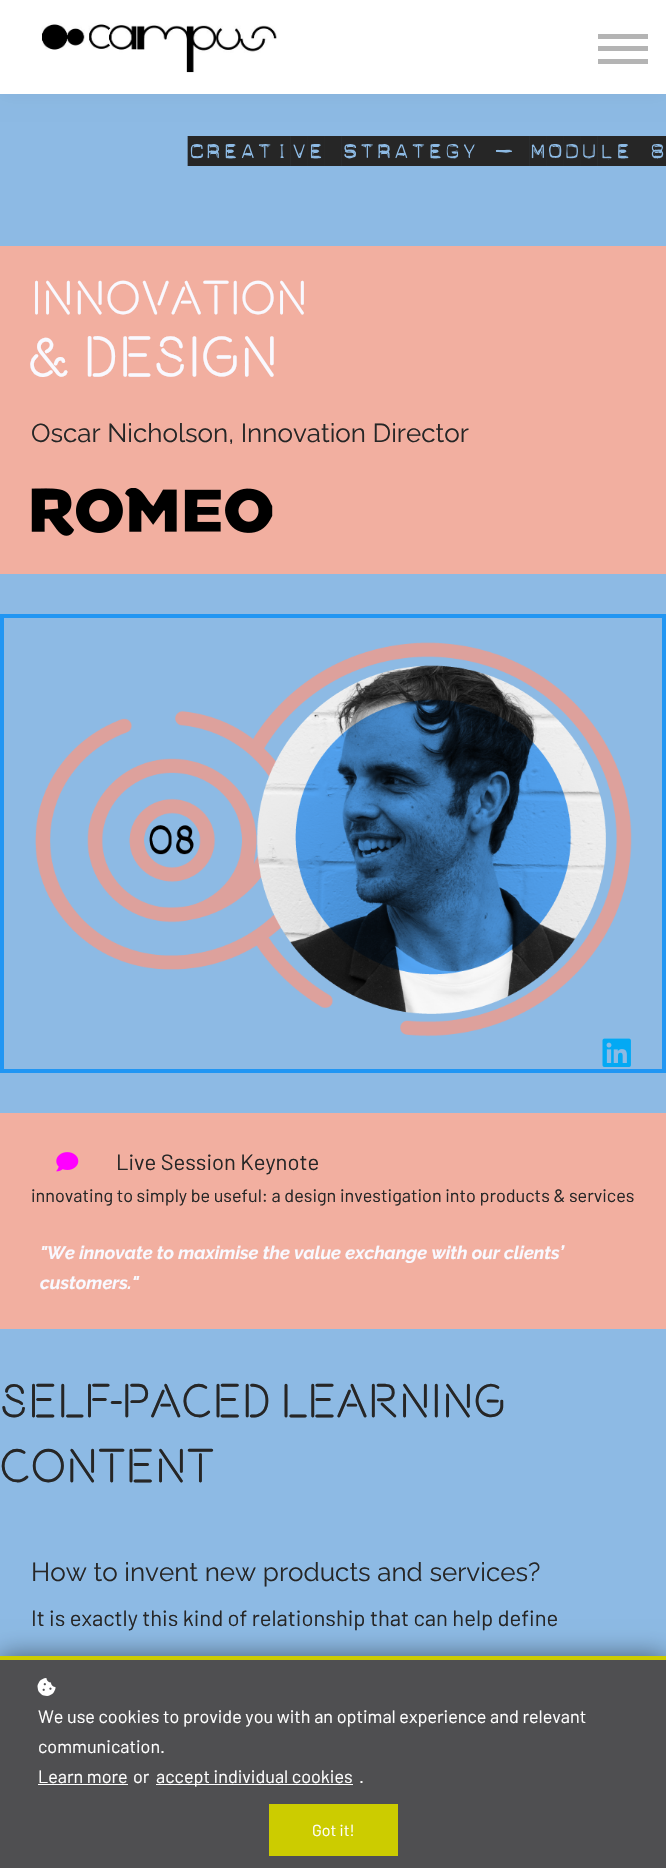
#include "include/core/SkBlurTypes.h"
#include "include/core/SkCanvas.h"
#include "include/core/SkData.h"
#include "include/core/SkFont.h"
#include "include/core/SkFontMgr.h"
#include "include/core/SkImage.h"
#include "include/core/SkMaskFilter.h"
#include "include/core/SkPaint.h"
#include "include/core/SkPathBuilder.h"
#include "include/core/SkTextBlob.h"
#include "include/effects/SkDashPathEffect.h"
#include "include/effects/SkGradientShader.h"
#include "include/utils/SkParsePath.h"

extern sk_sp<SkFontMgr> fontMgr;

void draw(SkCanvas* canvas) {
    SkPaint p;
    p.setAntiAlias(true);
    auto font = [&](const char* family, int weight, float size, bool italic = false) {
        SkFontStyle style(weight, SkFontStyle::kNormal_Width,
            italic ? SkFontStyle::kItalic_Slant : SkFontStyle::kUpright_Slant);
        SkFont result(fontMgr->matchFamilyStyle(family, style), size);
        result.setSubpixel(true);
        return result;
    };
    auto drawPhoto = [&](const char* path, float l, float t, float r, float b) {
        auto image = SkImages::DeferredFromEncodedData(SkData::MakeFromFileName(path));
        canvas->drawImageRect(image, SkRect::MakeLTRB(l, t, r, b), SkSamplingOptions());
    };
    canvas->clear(0xFF8DBAE4);
    p.setColor(0x0D000000);
    p.setMaskFilter(SkMaskFilter::MakeBlur(kNormal_SkBlurStyle, 9.5f));
    canvas->drawRect(SkRect::MakeLTRB(0, 0, 666, 94), p);
    p.setMaskFilter(nullptr);
    p.setColor(0xFFFFFFFF);
    canvas->drawRect(SkRect::MakeLTRB(0, 0, 666, 94), p);
    drawPhoto("media/1.png", 41, 23, 277, 73);
    {
        const struct { float l, t, r, b; SkColor color; } items[] = {
            {598, 59, 648, 64, 0xFFB4B4B4},
            {598, 34, 648, 39, 0xFFB4B4B4},
            {598, 46, 648, 51, 0xFFB4B4B4},
        };
        for (auto [l, t, r, b, color] : items) {
            p.setColor(color);
            canvas->drawRect(SkRect::MakeLTRB(l, t, r, b), p);
        }
    }
    auto font1 = font("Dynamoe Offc", 400, 30);
    p.setColor(0xFF262626);
    canvas->drawString("CREATIVE STRATEGY – Module 8", 188, 160, font1, p);
    p.setColor(0xFFF2AFA0);
    canvas->drawRect(SkRect::MakeLTRB(0, 246, 666, 574), p);
    auto font2 = font("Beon", 500, 48);
    p.setColor(0xFFF9F9FF);
    canvas->drawString("innovation", 31, 313, font2, p);
    auto font3 = font("Beon", 500, 58);
    canvas->drawString("& design", 31, 375, font3, p);
    auto font4 = font("Raleway", 400, 26);
    p.setColor(0xFF262626);
    canvas->drawString("Oscar Nicholson, Innovation Director", 31, 442, font4, p);
    drawPhoto("media/2.png", 31, 488, 273, 536);
    p.setStyle(SkPaint::kStroke_Style);
    p.setStrokeWidth(4);
    p.setColor(0xFF2196F3);
    canvas->drawRect(SkRect::MakeLTRB(2, 616, 664, 1071), p);
    drawPhoto("media/3.png", 35, 642, 632, 1037);
    drawPhoto("media/4.png", 602, 1038, 631, 1067);
    p.setStyle(SkPaint::kFill_Style);
    p.setColor(0xFFF2AFA0);
    canvas->drawRect(SkRect::MakeLTRB(0, 1113, 666, 1329), p);
    drawPhoto("media/5.png", 56, 1152, 79, 1172);
    auto font5 = font("Barlow", 400, 22);
    p.setColor(0xFF262626);
    canvas->drawString("Live Session Keynote", 116, 1170, font5, p);
    auto font6 = font("Barlow", 400, 18);
    canvas->drawString("innovating to simply be useful: a design investigation into products & services", 31, 1202, font6, p);
    auto font7 = font("Raleway", 700, 18, true);
    p.setColor(0xFFF9F9FF);
    canvas->drawString("\"We innovate to maximise the value exchange with our clients’", 40, 1259, font7, p);
    canvas->drawString("customers.\"", 40, 1289, font7, p);
    p.setColor(0xFF262626);
    canvas->drawString("SELF-PACED LEARNING", 0, 1416, font2, p);
    canvas->drawString("CONTENT", 0, 1481, font2, p);
    canvas->drawString("How to invent new products and services?", 31, 1581, font4, p);
    canvas->drawString("It is exactly this kind of relationship that can help define", 31, 1626, font5, p);
    p.setColor(0x80000000);
    p.setMaskFilter(SkMaskFilter::MakeBlur(kNormal_SkBlurStyle, 12.5f));
    canvas->drawRect(SkRect::MakeLTRB(0, 1656, 666, 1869), p);
    p.setMaskFilter(nullptr);
    p.setColor(0xFF4F4F51);
    canvas->drawRect(SkRect::MakeLTRB(0, 1660, 666, 1868), p);
    p.setColor(0xFFCCCC00);
    canvas->drawRect(SkRect::MakeLTRB(0, 1656, 666, 1660), p);
    drawPhoto("media/6.png", 37, 1678, 56, 1696);
    p.setColor(0xFFFFFFFF);
    {
        const struct { const char* s; float x, y; } items[] = {
            {"We use cookies to provide you with an optimal experience and relevant", 38, 1723},
            {"communication.", 38, 1753},
            {"Learn more", 38, 1783},
        };
        for (auto [s, x, y] : items) {
            canvas->drawString(s, x, y, font6, p);
        }
    }
    canvas->drawRect(SkRect::MakeLTRB(38, 1784, 128, 1785), p);
    canvas->drawString("or", 133, 1783, font6, p);
    canvas->drawRect(SkRect::MakeLTRB(156, 1784, 353, 1785), p);
    canvas->drawString("accept individual cookies", 156, 1783, font6, p);
    canvas->drawString(".", 359, 1783, font6, p);
    p.setColor(0xFFCCCC00);
    canvas->drawRect(SkRect::MakeLTRB(269, 1804, 398, 1856), p);
    auto font8 = font("Barlow", 400, 16);
    p.setColor(0xFFFFFFFF);
    canvas->drawString("Got it!", 312, 1836, font8, p);
}
